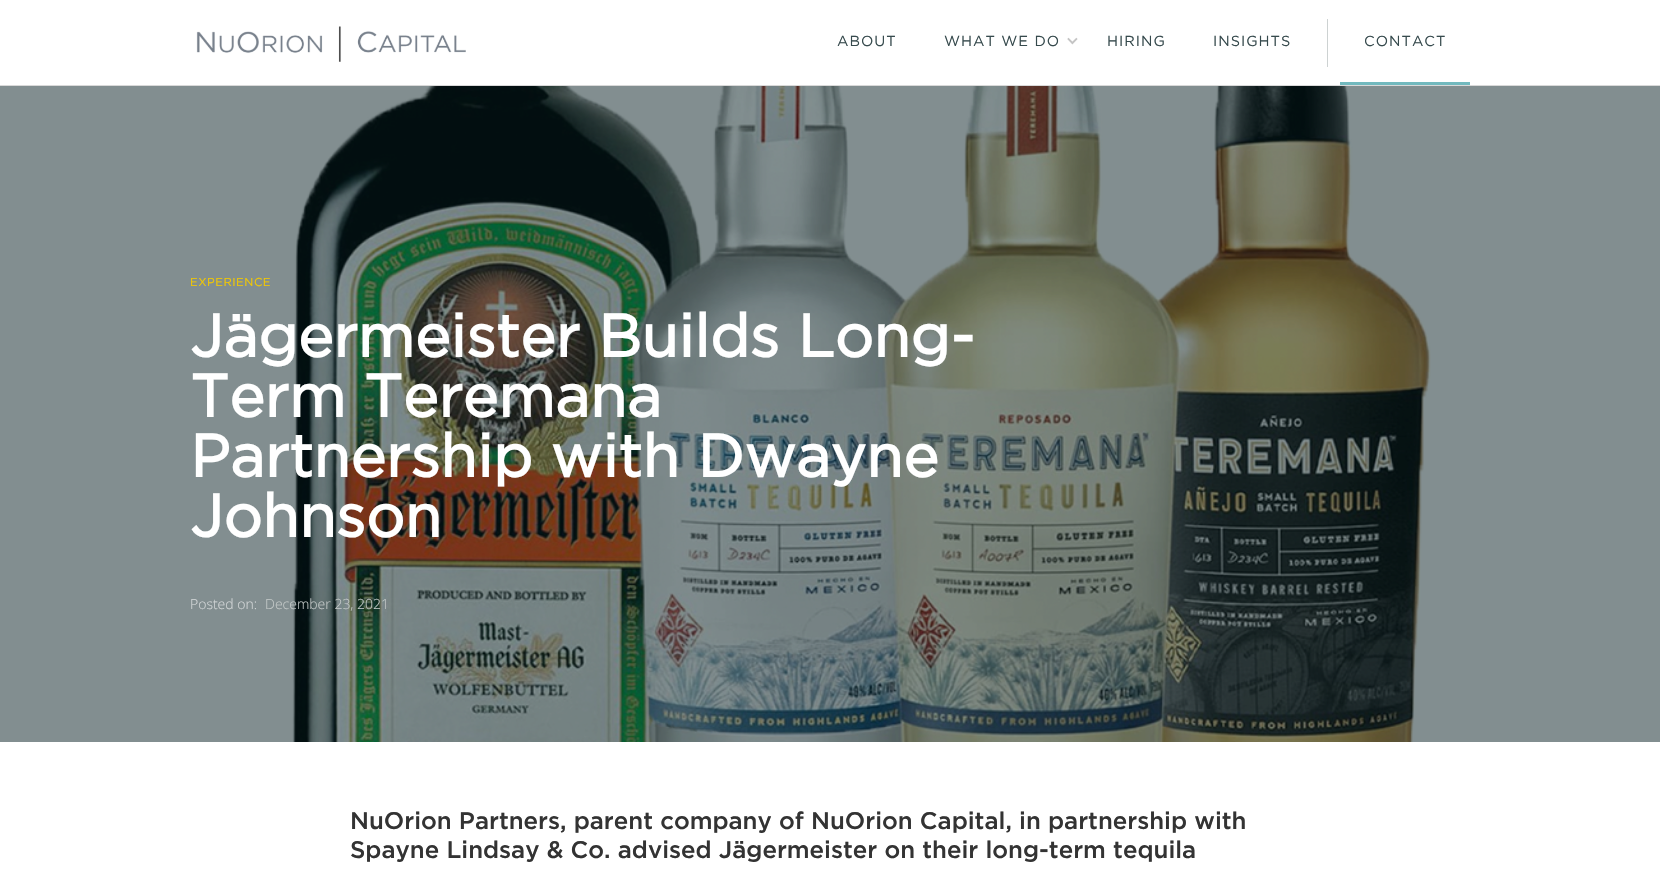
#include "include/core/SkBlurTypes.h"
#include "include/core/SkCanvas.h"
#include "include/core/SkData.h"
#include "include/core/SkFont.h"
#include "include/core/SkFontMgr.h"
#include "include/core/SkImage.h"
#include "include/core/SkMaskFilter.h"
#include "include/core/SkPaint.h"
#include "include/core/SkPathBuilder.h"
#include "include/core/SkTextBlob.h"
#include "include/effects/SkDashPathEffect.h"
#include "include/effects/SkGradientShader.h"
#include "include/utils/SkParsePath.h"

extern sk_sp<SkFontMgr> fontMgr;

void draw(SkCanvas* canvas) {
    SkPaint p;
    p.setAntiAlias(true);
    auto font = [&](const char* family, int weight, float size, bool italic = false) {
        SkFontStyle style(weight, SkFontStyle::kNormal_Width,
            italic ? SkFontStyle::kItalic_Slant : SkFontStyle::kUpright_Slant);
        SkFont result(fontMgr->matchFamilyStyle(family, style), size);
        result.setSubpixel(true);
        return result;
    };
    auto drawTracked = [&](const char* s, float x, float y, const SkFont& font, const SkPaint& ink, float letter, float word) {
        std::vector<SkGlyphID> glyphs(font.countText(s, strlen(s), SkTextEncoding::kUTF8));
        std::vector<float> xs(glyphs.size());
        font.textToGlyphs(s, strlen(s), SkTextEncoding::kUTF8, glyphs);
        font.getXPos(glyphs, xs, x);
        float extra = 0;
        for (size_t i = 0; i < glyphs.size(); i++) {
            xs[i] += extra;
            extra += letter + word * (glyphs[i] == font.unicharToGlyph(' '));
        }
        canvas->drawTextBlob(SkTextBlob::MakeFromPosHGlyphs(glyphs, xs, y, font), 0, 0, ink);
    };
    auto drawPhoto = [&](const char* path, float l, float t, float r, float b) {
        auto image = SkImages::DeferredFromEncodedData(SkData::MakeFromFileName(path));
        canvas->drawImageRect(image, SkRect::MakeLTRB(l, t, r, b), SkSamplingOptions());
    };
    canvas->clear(0xFFFFFFFF);
    p.setColor(0xFF828E90);
    canvas->drawRect(SkRect::MakeLTRB(0, 86, 1660, 742), p);
    p.setColor(0xFFD9D9D9);
    canvas->drawRect(SkRect::MakeLTRB(0, 85, 1660, 86), p);
    drawPhoto("media/1.png", 196, 26, 466, 62);
    auto font1 = font("Gotham", 400, 14.5f);
    p.setColor(0xFF364A4D);
    drawTracked("ABOUT", 837, 46, font1, p, 1, 0);
    drawTracked("WHAT WE DO", 944, 46, font1, p, 1, 0);
    drawPhoto("media/2.png", 1067, 37, 1078, 45);
    drawTracked("HIRING", 1107, 46, font1, p, 1, 0);
    drawTracked("INSIGHTS", 1213, 46, font1, p, 1, 0);
    p.setColor(0xFFCDD2D2);
    canvas->drawRect(SkRect::MakeLTRB(1327, 19, 1328, 67), p);
    p.setColor(0xFF72B9BE);
    canvas->drawRect(SkRect::MakeLTRB(1340, 82, 1470, 85), p);
    p.setColor(0xFF364A4D);
    drawTracked("CONTACT", 1364, 46, font1, p, 1, 0);
    drawPhoto("media/3.png", 292, 86, 1431, 742);
    auto font2 = font("Gotham", 400, 11.5f);
    p.setColor(0xFFF4C900);
    drawTracked("EXPERIENCE", 190, 286, font2, p, 0.5f, 0);
    auto font3 = font("Gotham", 700, 60);
    p.setColor(0xFFFFFFFF);
    {
        const struct { const char* s; float x, y; } items[] = {
            {"Jägermeister Builds Long-", 190, 357},
            {"Term Teremana", 190, 417},
            {"Partnership with Dwayne", 190, 477},
            {"Johnson", 190, 537},
        };
        for (auto [s, x, y] : items) {
            canvas->drawString(s, x, y, font3, p);
        }
    }
    auto font4 = font("Open Sans", 300, 14);
    p.setColor(0xFFD3D7D8);
    canvas->drawString("Posted on:", 190, 609, font4, p);
    p.setColor(0xFFC3C9C8);
    canvas->drawString("December 23, 2021", 265, 609, font4, p);
    auto font5 = font("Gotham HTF", 500, 24);
    p.setColor(0xFF333333);
    canvas->drawString("NuOrion Partners, parent company of NuOrion Capital, in partnership with", 350, 829, font5, p);
    canvas->drawString("Spayne Lindsay & Co. advised Jägermeister on their long-term tequila", 350, 858, font5, p);
}
